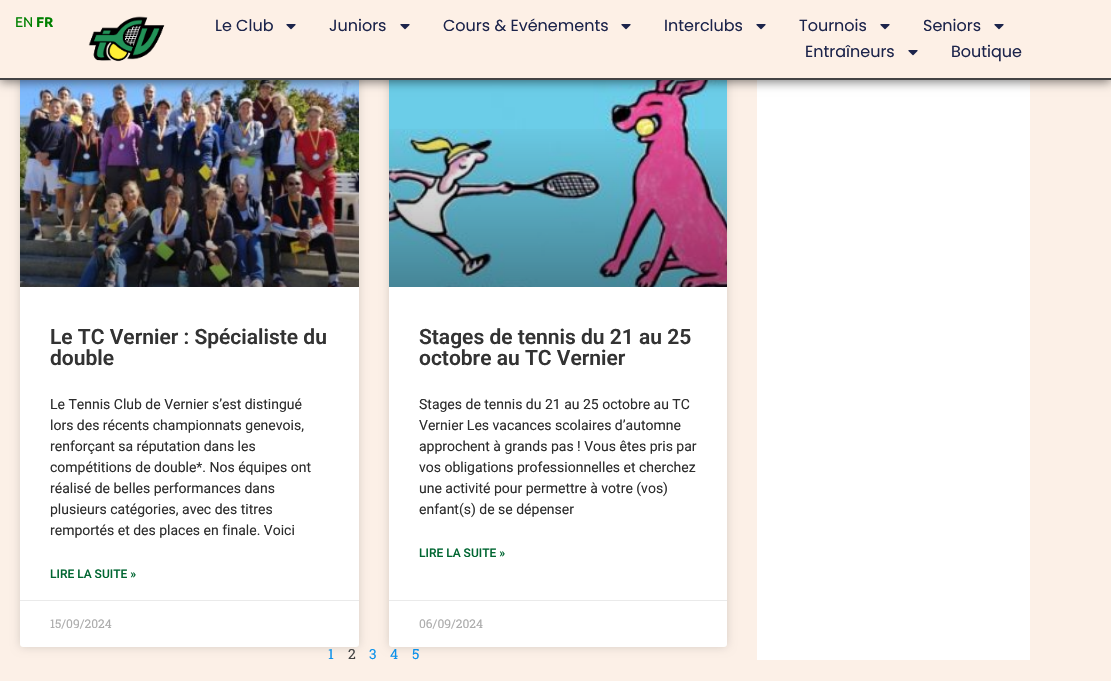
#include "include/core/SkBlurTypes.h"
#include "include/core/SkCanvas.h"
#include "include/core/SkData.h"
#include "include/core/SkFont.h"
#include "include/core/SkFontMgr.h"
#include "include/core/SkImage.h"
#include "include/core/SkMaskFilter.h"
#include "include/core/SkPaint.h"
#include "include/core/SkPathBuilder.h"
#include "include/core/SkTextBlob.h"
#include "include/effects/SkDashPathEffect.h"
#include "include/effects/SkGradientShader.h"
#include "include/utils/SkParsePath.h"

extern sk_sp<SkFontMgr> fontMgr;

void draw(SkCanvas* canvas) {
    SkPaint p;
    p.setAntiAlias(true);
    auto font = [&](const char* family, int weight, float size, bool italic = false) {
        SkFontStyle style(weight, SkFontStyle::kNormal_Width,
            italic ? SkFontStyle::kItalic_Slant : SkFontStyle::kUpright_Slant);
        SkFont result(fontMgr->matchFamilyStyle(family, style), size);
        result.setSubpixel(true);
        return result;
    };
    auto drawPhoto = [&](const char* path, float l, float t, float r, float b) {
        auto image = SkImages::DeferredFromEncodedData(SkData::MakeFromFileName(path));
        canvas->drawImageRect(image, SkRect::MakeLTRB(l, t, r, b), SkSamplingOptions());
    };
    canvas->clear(0xFFFCF0E7);
    p.setColor(0x26000000);
    p.setMaskFilter(SkMaskFilter::MakeBlur(kNormal_SkBlurStyle, 5));
    canvas->drawRoundRect(SkRect::MakeLTRB(20, 63, 359, 647), 3, 3, p);
    p.setMaskFilter(nullptr);
    p.setColor(0xFFFFFFFF);
    canvas->drawRoundRect(SkRect::MakeLTRB(20, 63, 359, 647), 3, 3, p);
    drawPhoto("media/3.png", 20, 80, 359, 287);
    p.setColor(0x26000000);
    p.setMaskFilter(SkMaskFilter::MakeBlur(kNormal_SkBlurStyle, 5));
    canvas->drawRoundRect(SkRect::MakeLTRB(389, 63, 727, 647), 3, 3, p);
    p.setMaskFilter(nullptr);
    p.setColor(0xFFFFFFFF);
    canvas->drawRoundRect(SkRect::MakeLTRB(389, 63, 727, 647), 3, 3, p);
    drawPhoto("media/4.png", 389, 80, 727, 287);
    canvas->drawRect(SkRect::MakeLTRB(757, 80, 1030, 660), p);
    p.setColor(0x80000000);
    p.setMaskFilter(SkMaskFilter::MakeBlur(kNormal_SkBlurStyle, 5));
    canvas->drawRect(SkRect::MakeLTRB(0, 2, 1111, 82), p);
    p.setMaskFilter(nullptr);
    p.setColor(0xFFFDF0E6);
    canvas->drawRect(SkRect::MakeLTRB(0, 0, 1111, 78), p);
    auto font1 = font("Ubuntu", 400, 14);
    p.setColor(0xFF008000);
    canvas->drawString("EN", 15, 27, font1, p);
    auto font2 = font("Ubuntu", 700, 14);
    canvas->drawString("FR", 36, 27, font2, p);
    p.setColor(0xFF444444);
    canvas->drawRect(SkRect::MakeLTRB(0, 78, 1111, 80), p);
    drawPhoto("media/1.png", 88, 16, 165, 62);
    auto font3 = font("Poppins", 400, 16);
    p.setColor(0xFF1C244B);
    canvas->drawString("Le Club", 215, 31, font3, p);
    drawPhoto("media/2.png", 286, 24, 296, 30);
    canvas->drawString("Juniors", 329, 31, font3, p);
    drawPhoto("media/2.png", 400, 24, 410, 30);
    canvas->drawString("Cours & Evénements", 443, 31, font3, p);
    drawPhoto("media/2.png", 621, 24, 631, 30);
    canvas->drawString("Interclubs", 664, 31, font3, p);
    drawPhoto("media/2.png", 756, 24, 766, 30);
    canvas->drawString("Tournois", 799, 31, font3, p);
    drawPhoto("media/2.png", 880, 24, 890, 30);
    canvas->drawString("Seniors", 923, 31, font3, p);
    drawPhoto("media/2.png", 994, 24, 1004, 30);
    canvas->drawString("Entraîneurs", 805, 57, font3, p);
    drawPhoto("media/2.png", 908, 50, 918, 56);
    canvas->drawString("Boutique", 951, 57, font3, p);
    {
        const SkColor colors[] = {0x59000000, 0x00000000};
        const float stops[] = {0, 0.75f};
        const SkPoint ends[] = {{190, 287}, {190, 63}};
        p.setShader(SkGradientShader::MakeLinear(ends, colors, stops, 2, SkTileMode::kClamp));
        p.setAlpha(255);
    }
    canvas->drawRect(SkRect::MakeLTRB(20, 129, 359, 287), p);
    auto font4 = font("Roboto", 600, 21);
    p.setShader(nullptr);
    p.setColor(0xFF333333);
    canvas->drawString("Le TC Vernier : Spécialiste du", 50, 344, font4, p);
    canvas->drawString("double", 50, 365, font4, p);
    auto font5 = font("Roboto", 400, 14);
    p.setColor(0xFF2D2D2D);
    {
        const struct { const char* s; float x, y; } items[] = {
            {"Le Tennis Club de Vernier s’est distingué", 50, 409},
            {"lors des récents championnats genevois,", 50, 430},
            {"renforçant sa réputation dans les", 50, 451},
            {"compétitions de double*. Nos équipes ont", 50, 472},
            {"réalisé de belles performances dans", 50, 493},
            {"plusieurs catégories, avec des titres", 50, 514},
            {"remportés et des places en finale. Voici", 50, 535},
        };
        for (auto [s, x, y] : items) {
            canvas->drawString(s, x, y, font5, p);
        }
    }
    auto font6 = font("Roboto", 500, 12);
    p.setColor(0xFF006631);
    canvas->drawString("LIRE LA SUITE »", 50, 578, font6, p);
    p.setColor(0xFFEAEAEA);
    canvas->drawRect(SkRect::MakeLTRB(20, 600, 359, 601), p);
    auto font7 = font("Roboto Slab", 400, 12);
    p.setColor(0xFFADADAD);
    canvas->drawString("15/09/2024", 50, 628, font7, p);
    {
        const SkColor colors[] = {0x59000000, 0x00000000};
        const float stops[] = {0, 0.75f};
        const SkPoint ends[] = {{558, 287}, {558, 63}};
        p.setShader(SkGradientShader::MakeLinear(ends, colors, stops, 2, SkTileMode::kClamp));
        p.setAlpha(255);
    }
    canvas->drawRect(SkRect::MakeLTRB(389, 129, 727, 287), p);
    p.setShader(nullptr);
    p.setColor(0xFF333333);
    canvas->drawString("Stages de tennis du 21 au 25", 419, 344, font4, p);
    canvas->drawString("octobre au TC Vernier", 419, 365, font4, p);
    p.setColor(0xFF2D2D2D);
    {
        const struct { const char* s; float x, y; } items[] = {
            {"Stages de tennis du 21 au 25 octobre au TC", 419, 409},
            {"Vernier Les vacances scolaires d’automne", 419, 430},
            {"approchent à grands pas ! Vous êtes pris par", 419, 451},
            {"vos obligations professionnelles et cherchez", 419, 472},
            {"une activité pour permettre à votre (vos)", 419, 493},
            {"enfant(s) de se dépenser", 419, 514},
        };
        for (auto [s, x, y] : items) {
            canvas->drawString(s, x, y, font5, p);
        }
    }
    p.setColor(0xFF006631);
    canvas->drawString("LIRE LA SUITE »", 419, 557, font6, p);
    p.setColor(0xFFEAEAEA);
    canvas->drawRect(SkRect::MakeLTRB(389, 600, 727, 601), p);
    p.setColor(0xFFADADAD);
    canvas->drawString("06/09/2024", 419, 628, font7, p);
    auto font8 = font("Roboto Slab", 400, 14);
    p.setColor(0xFF0B91EA);
    canvas->drawString("1", 328, 659, font8, p);
    p.setColor(0xFF444444);
    canvas->drawString("2", 348, 659, font8, p);
    p.setColor(0xFF0B91EA);
    {
        const struct { const char* s; float x, y; } items[] = {
            {"3", 369, 659},
            {"4", 390, 659},
            {"5", 412, 659},
        };
        for (auto [s, x, y] : items) {
            canvas->drawString(s, x, y, font8, p);
        }
    }
}
